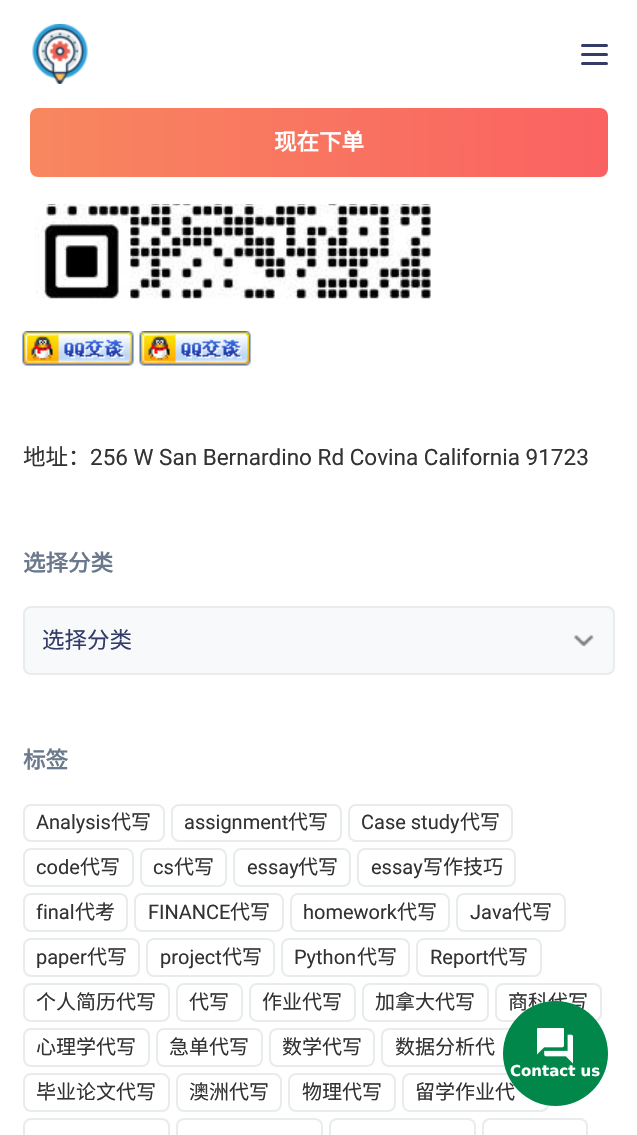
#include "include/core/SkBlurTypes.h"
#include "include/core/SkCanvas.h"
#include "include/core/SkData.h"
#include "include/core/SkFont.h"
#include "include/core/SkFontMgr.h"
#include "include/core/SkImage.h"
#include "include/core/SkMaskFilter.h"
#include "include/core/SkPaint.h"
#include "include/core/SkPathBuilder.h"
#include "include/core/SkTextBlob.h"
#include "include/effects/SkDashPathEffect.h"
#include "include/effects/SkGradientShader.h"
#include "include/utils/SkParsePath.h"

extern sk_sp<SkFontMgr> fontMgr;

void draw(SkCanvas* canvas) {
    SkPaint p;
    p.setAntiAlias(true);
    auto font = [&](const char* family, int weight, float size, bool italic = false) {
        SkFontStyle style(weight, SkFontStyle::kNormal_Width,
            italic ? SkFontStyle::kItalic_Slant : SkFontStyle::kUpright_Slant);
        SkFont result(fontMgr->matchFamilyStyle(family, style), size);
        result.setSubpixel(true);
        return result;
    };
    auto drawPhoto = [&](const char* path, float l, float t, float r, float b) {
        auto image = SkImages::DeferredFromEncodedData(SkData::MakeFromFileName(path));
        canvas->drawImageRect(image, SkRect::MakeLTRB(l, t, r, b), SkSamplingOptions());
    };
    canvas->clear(0xFFFFFFFF);
    drawPhoto("media/1.png", 32, 24, 88, 84);
    p.setColor(0xFF333B69);
    canvas->drawRoundRect(SkRect::MakeLTRB(581, 44, 608, 47), 1.5f, 1.5f, p);
    canvas->drawRoundRect(SkRect::MakeLTRB(581, 53, 608, 56), 1.5f, 1.5f, p);
    canvas->drawRoundRect(SkRect::MakeLTRB(581, 62, 608, 65), 1.5f, 1.5f, p);
    {
        const SkColor colors[] = {0xFFF8875F, 0xFFFA6262};
        const float stops[] = {0, 1};
        const SkPoint ends[] = {{30, 143}, {608, 142}};
        p.setShader(SkGradientShader::MakeLinear(ends, colors, stops, 2, SkTileMode::kClamp));
        p.setAlpha(255);
    }
    canvas->drawRoundRect(SkRect::MakeLTRB(30, 108, 608, 177), 8, 8, p);
    auto font1 = font("Noto Sans CJK SC", 700, 22.5f);
    p.setShader(nullptr);
    p.setColor(0xFFFFFFFF);
    canvas->drawString("现在下单", 274, 150, font1, p);
    drawPhoto("media/2.png", 35, 204, 431, 299);
    drawPhoto("media/3.png", 22, 331, 134, 366);
    drawPhoto("media/3.png", 139, 331, 251, 366);
    auto font2 = font("Noto Sans CJK SC", 400, 22.5f);
    p.setColor(0xFF333333);
    canvas->drawString("地址：", 23, 465, font2, p);
    auto font3 = font("Roboto", 400, 22.5f);
    canvas->drawString("256 W San Bernardino Rd Covina California 91723", 90, 465, font3, p);
    p.setColor(0xFF6A798C);
    canvas->drawString("选择分类", 23, 571, font1, p);
    p.setColor(0xFFF7F9FA);
    canvas->drawRoundRect(SkRect::MakeLTRB(23, 606, 615, 675), 8, 8, p);
    drawPhoto("media/4.png", 573, 635, 594, 646);
    p.setStyle(SkPaint::kStroke_Style);
    p.setStrokeWidth(2);
    p.setColor(0xFFE8ECED);
    canvas->drawRoundRect(SkRect::MakeLTRB(24, 607, 614, 674), 7, 7, p);
    p.setStyle(SkPaint::kFill_Style);
    p.setColor(0xFF333B69);
    canvas->drawString("选择分类", 42, 648, font2, p);
    p.setColor(0xFF6A798C);
    canvas->drawString("标签", 23, 768, font1, p);
    p.setStyle(SkPaint::kStroke_Style);
    p.setColor(0xFFE8ECED);
    canvas->drawRoundRect(SkRect::MakeLTRB(24, 805, 164, 841), 7, 7, p);
    auto font4 = font("Roboto", 400, 20);
    p.setStyle(SkPaint::kFill_Style);
    p.setColor(0xFF333333);
    canvas->drawString("Analysis", 36, 829, font4, p);
    auto font5 = font("Noto Sans CJK SC", 400, 20);
    canvas->drawString("代写", 111, 829, font5, p);
    p.setStyle(SkPaint::kStroke_Style);
    p.setColor(0xFFE8ECED);
    canvas->drawRoundRect(SkRect::MakeLTRB(172, 805, 341, 841), 7, 7, p);
    p.setStyle(SkPaint::kFill_Style);
    p.setColor(0xFF333333);
    canvas->drawString("assignment", 184, 829, font4, p);
    canvas->drawString("代写", 288, 829, font5, p);
    p.setStyle(SkPaint::kStroke_Style);
    p.setColor(0xFFE8ECED);
    canvas->drawRoundRect(SkRect::MakeLTRB(349, 805, 512, 841), 7, 7, p);
    p.setStyle(SkPaint::kFill_Style);
    p.setColor(0xFF333333);
    canvas->drawString("Case study", 361, 829, font4, p);
    canvas->drawString("代写", 460, 829, font5, p);
    p.setStyle(SkPaint::kStroke_Style);
    p.setColor(0xFFE8ECED);
    canvas->drawRoundRect(SkRect::MakeLTRB(24, 849, 133, 886), 7, 7, p);
    p.setStyle(SkPaint::kFill_Style);
    p.setColor(0xFF333333);
    canvas->drawString("code", 36, 874, font4, p);
    canvas->drawString("代写", 80, 874, font5, p);
    p.setStyle(SkPaint::kStroke_Style);
    p.setColor(0xFFE8ECED);
    canvas->drawRoundRect(SkRect::MakeLTRB(141, 849, 226, 886), 7, 7, p);
    p.setStyle(SkPaint::kFill_Style);
    p.setColor(0xFF333333);
    canvas->drawString("cs", 153, 874, font4, p);
    canvas->drawString("代写", 174, 874, font5, p);
    p.setStyle(SkPaint::kStroke_Style);
    p.setColor(0xFFE8ECED);
    canvas->drawRoundRect(SkRect::MakeLTRB(234, 849, 350, 886), 7, 7, p);
    p.setStyle(SkPaint::kFill_Style);
    p.setColor(0xFF333333);
    canvas->drawString("essay", 247, 874, font4, p);
    canvas->drawString("代写", 298, 874, font5, p);
    p.setStyle(SkPaint::kStroke_Style);
    p.setColor(0xFFE8ECED);
    canvas->drawRoundRect(SkRect::MakeLTRB(358, 849, 515, 886), 7, 7, p);
    p.setStyle(SkPaint::kFill_Style);
    p.setColor(0xFF333333);
    canvas->drawString("essay", 371, 874, font4, p);
    canvas->drawString("写作技巧", 423, 874, font5, p);
    p.setStyle(SkPaint::kStroke_Style);
    p.setColor(0xFFE8ECED);
    canvas->drawRoundRect(SkRect::MakeLTRB(24, 894, 127, 931), 7, 7, p);
    p.setStyle(SkPaint::kFill_Style);
    p.setColor(0xFF333333);
    canvas->drawString("final", 36, 919, font4, p);
    canvas->drawString("代考", 75, 919, font5, p);
    p.setStyle(SkPaint::kStroke_Style);
    p.setColor(0xFFE8ECED);
    canvas->drawRoundRect(SkRect::MakeLTRB(135, 894, 283, 931), 7, 7, p);
    p.setStyle(SkPaint::kFill_Style);
    p.setColor(0xFF333333);
    canvas->drawString("FINANCE", 148, 919, font4, p);
    canvas->drawString("代写", 230, 919, font5, p);
    p.setStyle(SkPaint::kStroke_Style);
    p.setColor(0xFFE8ECED);
    canvas->drawRoundRect(SkRect::MakeLTRB(291, 894, 449, 931), 7, 7, p);
    p.setStyle(SkPaint::kFill_Style);
    p.setColor(0xFF333333);
    canvas->drawString("homework", 303, 919, font4, p);
    canvas->drawString("代写", 397, 919, font5, p);
    p.setStyle(SkPaint::kStroke_Style);
    p.setColor(0xFFE8ECED);
    canvas->drawRoundRect(SkRect::MakeLTRB(457, 894, 565, 931), 7, 7, p);
    p.setStyle(SkPaint::kFill_Style);
    p.setColor(0xFF333333);
    canvas->drawString("Java", 470, 919, font4, p);
    canvas->drawString("代写", 512, 919, font5, p);
    p.setStyle(SkPaint::kStroke_Style);
    p.setColor(0xFFE8ECED);
    canvas->drawRoundRect(SkRect::MakeLTRB(24, 939, 139, 976), 7, 7, p);
    p.setStyle(SkPaint::kFill_Style);
    p.setColor(0xFF333333);
    canvas->drawString("paper", 36, 964, font4, p);
    canvas->drawString("代写", 87, 964, font5, p);
    p.setStyle(SkPaint::kStroke_Style);
    p.setColor(0xFFE8ECED);
    canvas->drawRoundRect(SkRect::MakeLTRB(147, 939, 274, 976), 7, 7, p);
    p.setStyle(SkPaint::kFill_Style);
    p.setColor(0xFF333333);
    canvas->drawString("project", 160, 964, font4, p);
    canvas->drawString("代写", 222, 964, font5, p);
    p.setStyle(SkPaint::kStroke_Style);
    p.setColor(0xFFE8ECED);
    canvas->drawRoundRect(SkRect::MakeLTRB(282, 939, 409, 976), 7, 7, p);
    p.setStyle(SkPaint::kFill_Style);
    p.setColor(0xFF333333);
    canvas->drawString("Python", 294, 964, font4, p);
    canvas->drawString("代写", 357, 964, font5, p);
    p.setStyle(SkPaint::kStroke_Style);
    p.setColor(0xFFE8ECED);
    canvas->drawRoundRect(SkRect::MakeLTRB(417, 939, 541, 976), 7, 7, p);
    p.setStyle(SkPaint::kFill_Style);
    p.setColor(0xFF333333);
    canvas->drawString("Report", 430, 964, font4, p);
    canvas->drawString("代写", 488, 964, font5, p);
    p.setStyle(SkPaint::kStroke_Style);
    p.setColor(0xFFE8ECED);
    canvas->drawRoundRect(SkRect::MakeLTRB(24, 984, 169, 1021), 7, 7, p);
    p.setStyle(SkPaint::kFill_Style);
    p.setColor(0xFF333333);
    canvas->drawString("个人简历代写", 36, 1009, font5, p);
    p.setStyle(SkPaint::kStroke_Style);
    p.setColor(0xFFE8ECED);
    canvas->drawRoundRect(SkRect::MakeLTRB(177, 984, 242, 1021), 7, 7, p);
    p.setStyle(SkPaint::kFill_Style);
    p.setColor(0xFF333333);
    canvas->drawString("代写", 189, 1009, font5, p);
    p.setStyle(SkPaint::kStroke_Style);
    p.setColor(0xFFE8ECED);
    canvas->drawRoundRect(SkRect::MakeLTRB(250, 984, 355, 1021), 7, 7, p);
    p.setStyle(SkPaint::kFill_Style);
    p.setColor(0xFF333333);
    canvas->drawString("作业代写", 262, 1009, font5, p);
    p.setStyle(SkPaint::kStroke_Style);
    p.setColor(0xFFE8ECED);
    canvas->drawRoundRect(SkRect::MakeLTRB(363, 984, 488, 1021), 7, 7, p);
    p.setStyle(SkPaint::kFill_Style);
    p.setColor(0xFF333333);
    canvas->drawString("加拿大代写", 375, 1009, font5, p);
    p.setStyle(SkPaint::kStroke_Style);
    p.setColor(0xFFE8ECED);
    canvas->drawRoundRect(SkRect::MakeLTRB(496, 984, 601, 1021), 7, 7, p);
    p.setStyle(SkPaint::kFill_Style);
    p.setColor(0xFF333333);
    canvas->drawString("商科代写", 508, 1009, font5, p);
    p.setStyle(SkPaint::kStroke_Style);
    p.setColor(0xFFE8ECED);
    canvas->drawRoundRect(SkRect::MakeLTRB(24, 1029, 149, 1066), 7, 7, p);
    p.setStyle(SkPaint::kFill_Style);
    p.setColor(0xFF333333);
    canvas->drawString("心理学代写", 36, 1054, font5, p);
    p.setStyle(SkPaint::kStroke_Style);
    p.setColor(0xFFE8ECED);
    canvas->drawRoundRect(SkRect::MakeLTRB(157, 1029, 262, 1066), 7, 7, p);
    p.setStyle(SkPaint::kFill_Style);
    p.setColor(0xFF333333);
    canvas->drawString("急单代写", 169, 1054, font5, p);
    p.setStyle(SkPaint::kStroke_Style);
    p.setColor(0xFFE8ECED);
    canvas->drawRoundRect(SkRect::MakeLTRB(270, 1029, 374, 1066), 7, 7, p);
    p.setStyle(SkPaint::kFill_Style);
    p.setColor(0xFF333333);
    canvas->drawString("数学代写", 282, 1054, font5, p);
    p.setStyle(SkPaint::kStroke_Style);
    p.setColor(0xFFE8ECED);
    canvas->drawRoundRect(SkRect::MakeLTRB(382, 1029, 527, 1066), 7, 7, p);
    p.setStyle(SkPaint::kFill_Style);
    p.setColor(0xFF333333);
    canvas->drawString("数据分析代", 395, 1054, font5, p);
    p.setStyle(SkPaint::kStroke_Style);
    p.setColor(0xFFE8ECED);
    canvas->drawRoundRect(SkRect::MakeLTRB(24, 1074, 169, 1111), 7, 7, p);
    p.setStyle(SkPaint::kFill_Style);
    p.setColor(0xFF333333);
    canvas->drawString("毕业论文代写", 36, 1099, font5, p);
    p.setStyle(SkPaint::kStroke_Style);
    p.setColor(0xFFE8ECED);
    canvas->drawRoundRect(SkRect::MakeLTRB(177, 1074, 281, 1111), 7, 7, p);
    p.setStyle(SkPaint::kFill_Style);
    p.setColor(0xFF333333);
    canvas->drawString("澳洲代写", 189, 1099, font5, p);
    p.setStyle(SkPaint::kStroke_Style);
    p.setColor(0xFFE8ECED);
    canvas->drawRoundRect(SkRect::MakeLTRB(289, 1074, 395, 1111), 7, 7, p);
    p.setStyle(SkPaint::kFill_Style);
    p.setColor(0xFF333333);
    canvas->drawString("物理代写", 302, 1099, font5, p);
    p.setStyle(SkPaint::kStroke_Style);
    p.setColor(0xFFE8ECED);
    canvas->drawRoundRect(SkRect::MakeLTRB(403, 1074, 548, 1111), 7, 7, p);
    p.setStyle(SkPaint::kFill_Style);
    p.setColor(0xFF333333);
    canvas->drawString("留学作业代", 415, 1099, font5, p);
    p.setStyle(SkPaint::kStroke_Style);
    p.setColor(0xFFE8ECED);
    canvas->drawRoundRect(SkRect::MakeLTRB(24, 1119, 169, 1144), 7, 7, p);
    canvas->drawRoundRect(SkRect::MakeLTRB(177, 1119, 322, 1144), 7, 7, p);
    canvas->drawRoundRect(SkRect::MakeLTRB(330, 1119, 475, 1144), 7, 7, p);
    canvas->drawRoundRect(SkRect::MakeLTRB(483, 1119, 587, 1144), 7, 7, p);
    p.setStyle(SkPaint::kFill_Style);
    p.setColor(0xFF008749);
    canvas->drawCircle(555.5f, 1053.5f, 52.5f, p);
    drawPhoto("media/5.png", 537, 1028, 573, 1064);
    auto font6 = font("DejaVu Sans", 700, 15);
    p.setColor(0xFFFFFFFF);
    canvas->drawString("Contact us", 510, 1076, font6, p);
}
